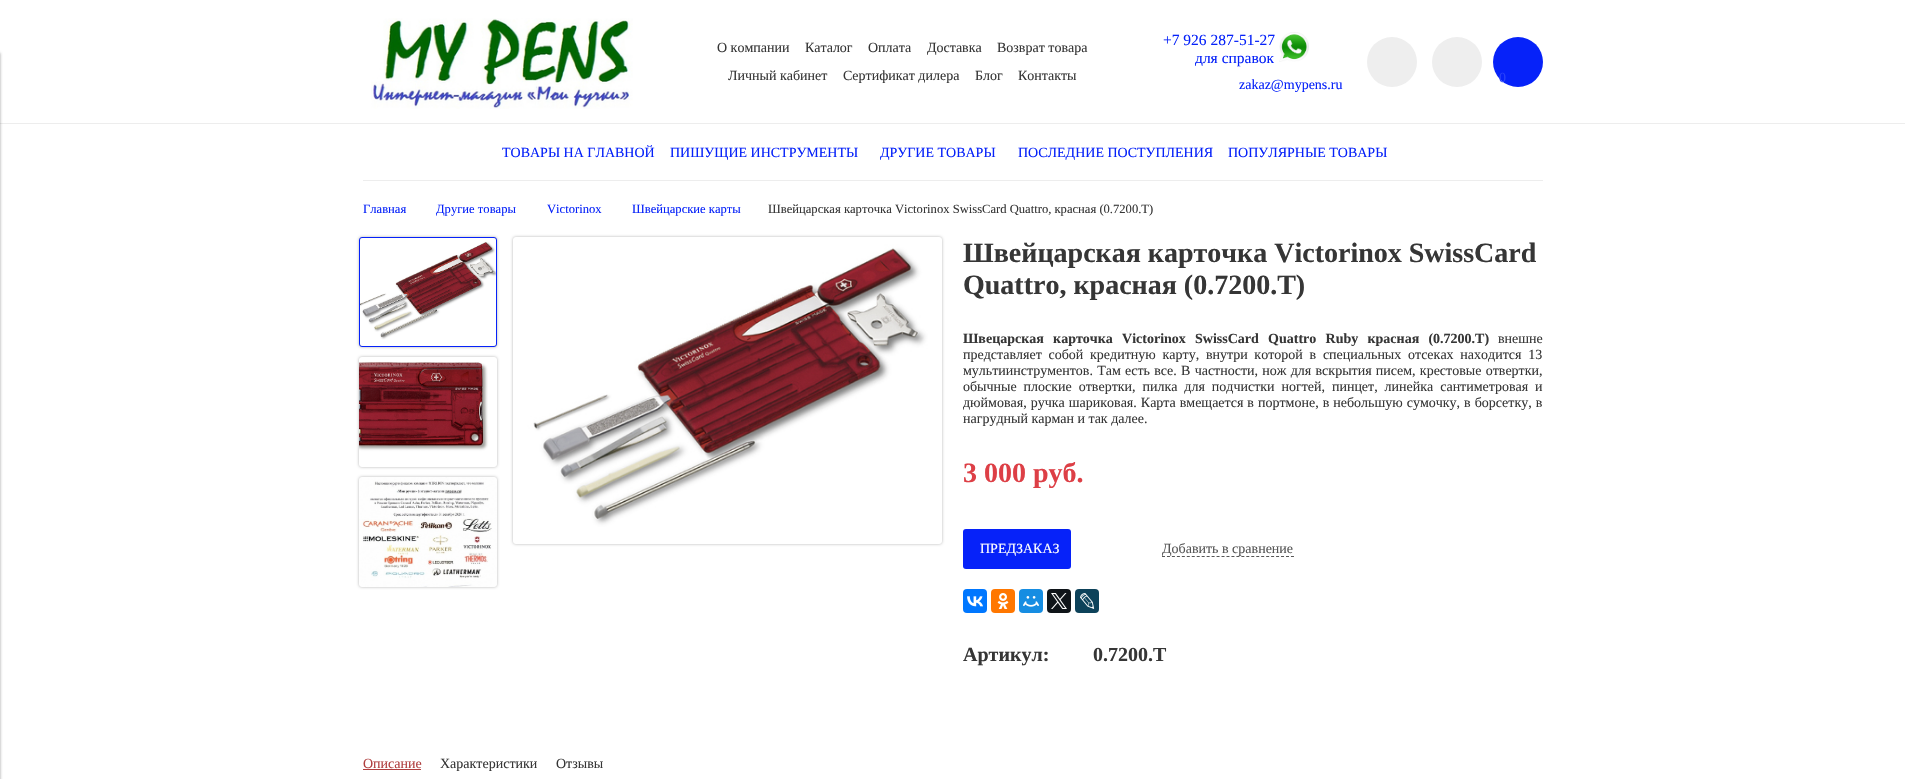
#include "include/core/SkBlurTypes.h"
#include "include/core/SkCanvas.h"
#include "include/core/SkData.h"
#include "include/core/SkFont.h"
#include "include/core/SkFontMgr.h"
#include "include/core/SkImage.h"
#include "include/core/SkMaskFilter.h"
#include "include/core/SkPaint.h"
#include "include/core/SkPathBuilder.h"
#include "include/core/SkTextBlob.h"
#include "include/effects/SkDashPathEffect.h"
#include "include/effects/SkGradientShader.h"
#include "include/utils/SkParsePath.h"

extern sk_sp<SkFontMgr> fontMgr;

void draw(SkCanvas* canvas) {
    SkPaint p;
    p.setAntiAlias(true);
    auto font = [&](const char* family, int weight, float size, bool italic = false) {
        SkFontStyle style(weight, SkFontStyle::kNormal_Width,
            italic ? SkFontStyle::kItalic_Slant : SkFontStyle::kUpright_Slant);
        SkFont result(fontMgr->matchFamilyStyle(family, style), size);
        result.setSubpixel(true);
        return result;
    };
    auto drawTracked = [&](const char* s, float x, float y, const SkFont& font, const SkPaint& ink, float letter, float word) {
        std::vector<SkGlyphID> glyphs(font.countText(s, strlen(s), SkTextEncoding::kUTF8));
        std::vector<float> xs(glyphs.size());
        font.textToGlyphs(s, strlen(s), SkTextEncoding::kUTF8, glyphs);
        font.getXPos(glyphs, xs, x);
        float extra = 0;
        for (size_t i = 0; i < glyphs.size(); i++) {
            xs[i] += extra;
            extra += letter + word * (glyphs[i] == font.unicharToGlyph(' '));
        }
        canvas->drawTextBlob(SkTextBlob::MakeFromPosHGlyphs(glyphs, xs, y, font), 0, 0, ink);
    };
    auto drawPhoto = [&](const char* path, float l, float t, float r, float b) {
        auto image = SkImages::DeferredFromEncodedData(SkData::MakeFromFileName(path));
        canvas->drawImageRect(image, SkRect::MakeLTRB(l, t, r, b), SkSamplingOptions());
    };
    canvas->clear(0xFFFFFFFF);
    p.setColor(0xFFEDEDED);
    canvas->drawRect(SkRect::MakeLTRB(0, 123, 1905, 124), p);
    p.setColor(0x66000000);
    p.setMaskFilter(SkMaskFilter::MakeBlur(kNormal_SkBlurStyle, 1.5f));
    canvas->drawRect(SkRect::MakeLTRB(-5, 53, 0, 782), p);
    p.setMaskFilter(nullptr);
    drawPhoto("media/1.png", 371, 18, 633, 109);
    auto font1 = font("Liberation Serif", 400, 14);
    p.setColor(0xFF363636);
    {
        const struct { const char* s; float x, y; } items[] = {
            {"О компании", 717, 52},
            {"Каталог", 805, 52},
            {"Оплата", 868, 52},
            {"Доставка", 927, 52},
            {"Возврат товара", 997, 52},
            {"Личный кабинет", 728, 80},
            {"Сертификат дилера", 843, 80},
            {"Блог", 975, 80},
            {"Контакты", 1018, 80},
        };
        for (auto [s, x, y] : items) {
            canvas->drawString(s, x, y, font1, p);
        }
    }
    auto font2 = font("Liberation Serif", 400, 15.5f);
    p.setColor(0xFF0622F9);
    canvas->drawString("+7 926 287-51-27", 1163, 45, font2, p);
    canvas->drawString("для справок", 1195, 63, font2, p);
    drawPhoto("media/2.png", 1279, 32, 1309, 62);
    canvas->drawString("zakaz@mypens.ru", 1239, 89, font1, p);
    p.setColor(0xFFEEEEEE);
    canvas->drawCircle(1392, 62, 25, p);
    canvas->drawCircle(1457, 62, 25, p);
    p.setColor(0xFF0622F9);
    canvas->drawCircle(1518, 62, 25, p);
    p.setColor(0xFF2841FA);
    canvas->drawString("0", 1499, 82, font1, p);
    p.setColor(0xFF0622F9);
    {
        const struct { const char* s; float x, y; } items[] = {
            {"ТОВАРЫ НА ГЛАВНОЙ", 502, 157},
            {"ПИШУЩИЕ ИНСТРУМЕНТЫ", 670, 157},
            {"ДРУГИЕ ТОВАРЫ", 880, 157},
            {"ПОСЛЕДНИЕ ПОСТУПЛЕНИЯ", 1018, 157},
            {"ПОПУЛЯРНЫЕ ТОВАРЫ", 1228, 157},
        };
        for (auto [s, x, y] : items) {
            canvas->drawString(s, x, y, font1, p);
        }
    }
    p.setColor(0xFFEDEDED);
    canvas->drawRect(SkRect::MakeLTRB(363, 180, 1543, 181), p);
    auto font3 = font("Liberation Serif", 400, 12.6f);
    p.setColor(0xFF0622F9);
    {
        const struct { const char* s; float x, y; } items[] = {
            {"Главная", 363, 213},
            {"Другие товары", 436, 213},
            {"Victorinox", 547, 213},
            {"Швейцарские карты", 632, 213},
        };
        for (auto [s, x, y] : items) {
            canvas->drawString(s, x, y, font3, p);
        }
    }
    p.setColor(0xFF363636);
    canvas->drawString("Швейцарская карточка Victorinox SwissCard Quattro, красная (0.7200.T)", 768, 213, font3, p);
    p.setColor(0x4D000000);
    p.setMaskFilter(SkMaskFilter::MakeBlur(kNormal_SkBlurStyle, 1.5f));
    canvas->drawRoundRect(SkRect::MakeLTRB(359, 237, 497, 347), 3, 3, p);
    p.setMaskFilter(nullptr);
    p.setStyle(SkPaint::kStroke_Style);
    p.setStrokeWidth(1);
    p.setColor(0xFF0622F9);
    canvas->drawRoundRect(SkRect::MakeLTRB(359.5f, 237.5f, 496.5f, 346.5f), 2.5f, 2.5f, p);
    drawPhoto("media/3.png", 360, 238, 496, 346);
    p.setStyle(SkPaint::kFill_Style);
    p.setColor(0x4D000000);
    p.setMaskFilter(SkMaskFilter::MakeBlur(kNormal_SkBlurStyle, 1.5f));
    canvas->drawRoundRect(SkRect::MakeLTRB(359, 357, 497, 467), 3, 3, p);
    p.setMaskFilter(nullptr);
    drawPhoto("media/4.png", 359, 357, 497, 467);
    p.setMaskFilter(SkMaskFilter::MakeBlur(kNormal_SkBlurStyle, 1.5f));
    canvas->drawRoundRect(SkRect::MakeLTRB(359, 477, 497, 587), 3, 3, p);
    p.setMaskFilter(nullptr);
    drawPhoto("media/5.png", 359, 477, 497, 587);
    p.setMaskFilter(SkMaskFilter::MakeBlur(kNormal_SkBlurStyle, 1.5f));
    canvas->drawRoundRect(SkRect::MakeLTRB(513, 237, 942, 544), 3, 3, p);
    p.setMaskFilter(nullptr);
    drawPhoto("media/6.png", 513, 237, 942, 544);
    auto font4 = font("Liberation Serif", 700, 28);
    p.setColor(0xFF363636);
    canvas->drawString("Швейцарская карточка Victorinox SwissCard", 963, 262, font4, p);
    canvas->drawString("Quattro, красная (0.7200.T)", 963, 294, font4, p);
    auto font5 = font("Liberation Serif", 700, 14);
    drawTracked("Швецарская карточка Victorinox SwissCard Quattro Ruby красная (0.7200.T)", 963, 343, font5, p, 0, 5.75f);
    canvas->drawString("внешне", 1498, 343, font1, p);
    drawTracked("представляет собой кредитную карту, внутри которой в специальных отсеках находится 13", 963, 359, font1, p, 0, 3.25f);
    drawTracked("мультиинструментов. Там есть все. В частности, нож для вскрытия писем, крестовые отвертки,", 963, 375, font1, p, 0, 0.75f);
    drawTracked("обычные плоские отвертки, пилка для подчистки ногтей, пинцет, линейка сантиметровая и", 963, 391, font1, p, 0, 3.4f);
    drawTracked("дюймовая, ручка шариковая. Карта вмещается в портмоне, в небольшую сумочку, в борсетку, в", 963, 407, font1, p, 0, 0.5f);
    canvas->drawString("нагрудный карман и так далее.", 963, 423, font1, p);
    p.setColor(0xFFDD3F46);
    canvas->drawString("3 000 руб.", 963, 482, font4, p);
    p.setColor(0xFF0622F9);
    canvas->drawRoundRect(SkRect::MakeLTRB(963, 529, 1071, 569), 3, 3, p);
    p.setColor(0xFFFFFFFF);
    canvas->drawString("ПРЕДЗАКАЗ", 980, 553, font1, p);
    p.setColor(0xFF555555);
    canvas->drawString("Добавить в сравнение", 1162, 553, font1, p);
    p.setStyle(SkPaint::kStroke_Style);
    p.setPathEffect(SkDashPathEffect::Make({{3, 1.96f}}, 0));
    canvas->drawPath(SkPathBuilder().moveTo(1162, 556.5f).lineTo(1294, 556.5f).detach(), p);
    p.setPathEffect(nullptr);
    p.setStyle(SkPaint::kFill_Style);
    p.setColor(0xFF0077FF);
    canvas->drawRoundRect(SkRect::MakeLTRB(963, 589, 987, 613), 4, 4, p);
    drawPhoto("media/7.png", 967, 596, 983, 607);
    p.setColor(0xFFFF7700);
    canvas->drawRoundRect(SkRect::MakeLTRB(991, 589, 1015, 613), 4, 4, p);
    drawPhoto("media/8.png", 997, 593, 1009, 609);
    p.setColor(0xFF168DE2);
    canvas->drawRoundRect(SkRect::MakeLTRB(1019, 589, 1043, 613), 4, 4, p);
    drawPhoto("media/9.png", 1023, 596, 1039, 607);
    p.setColor(0xFF0F1419);
    canvas->drawRoundRect(SkRect::MakeLTRB(1047, 589, 1071, 613), 4, 4, p);
    drawPhoto("media/10.png", 1051, 593, 1067, 609);
    p.setColor(0xFF0D425A);
    canvas->drawRoundRect(SkRect::MakeLTRB(1075, 589, 1099, 613), 4, 4, p);
    drawPhoto("media/11.png", 1080, 593, 1095, 609);
    auto font6 = font("Liberation Serif", 700, 20);
    p.setColor(0xFF363636);
    canvas->drawString("Артикул:", 963, 661, font6, p);
    canvas->drawString("0.7200.T", 1093, 661, font6, p);
    p.setColor(0xFFB03F3F);
    canvas->drawString("Описание", 363, 768, font1, p);
    canvas->drawRect(SkRect::MakeLTRB(363, 769, 421, 770), p);
    p.setColor(0xFF363636);
    canvas->drawString("Характеристики", 440, 768, font1, p);
    canvas->drawString("Отзывы", 556, 768, font1, p);
}
